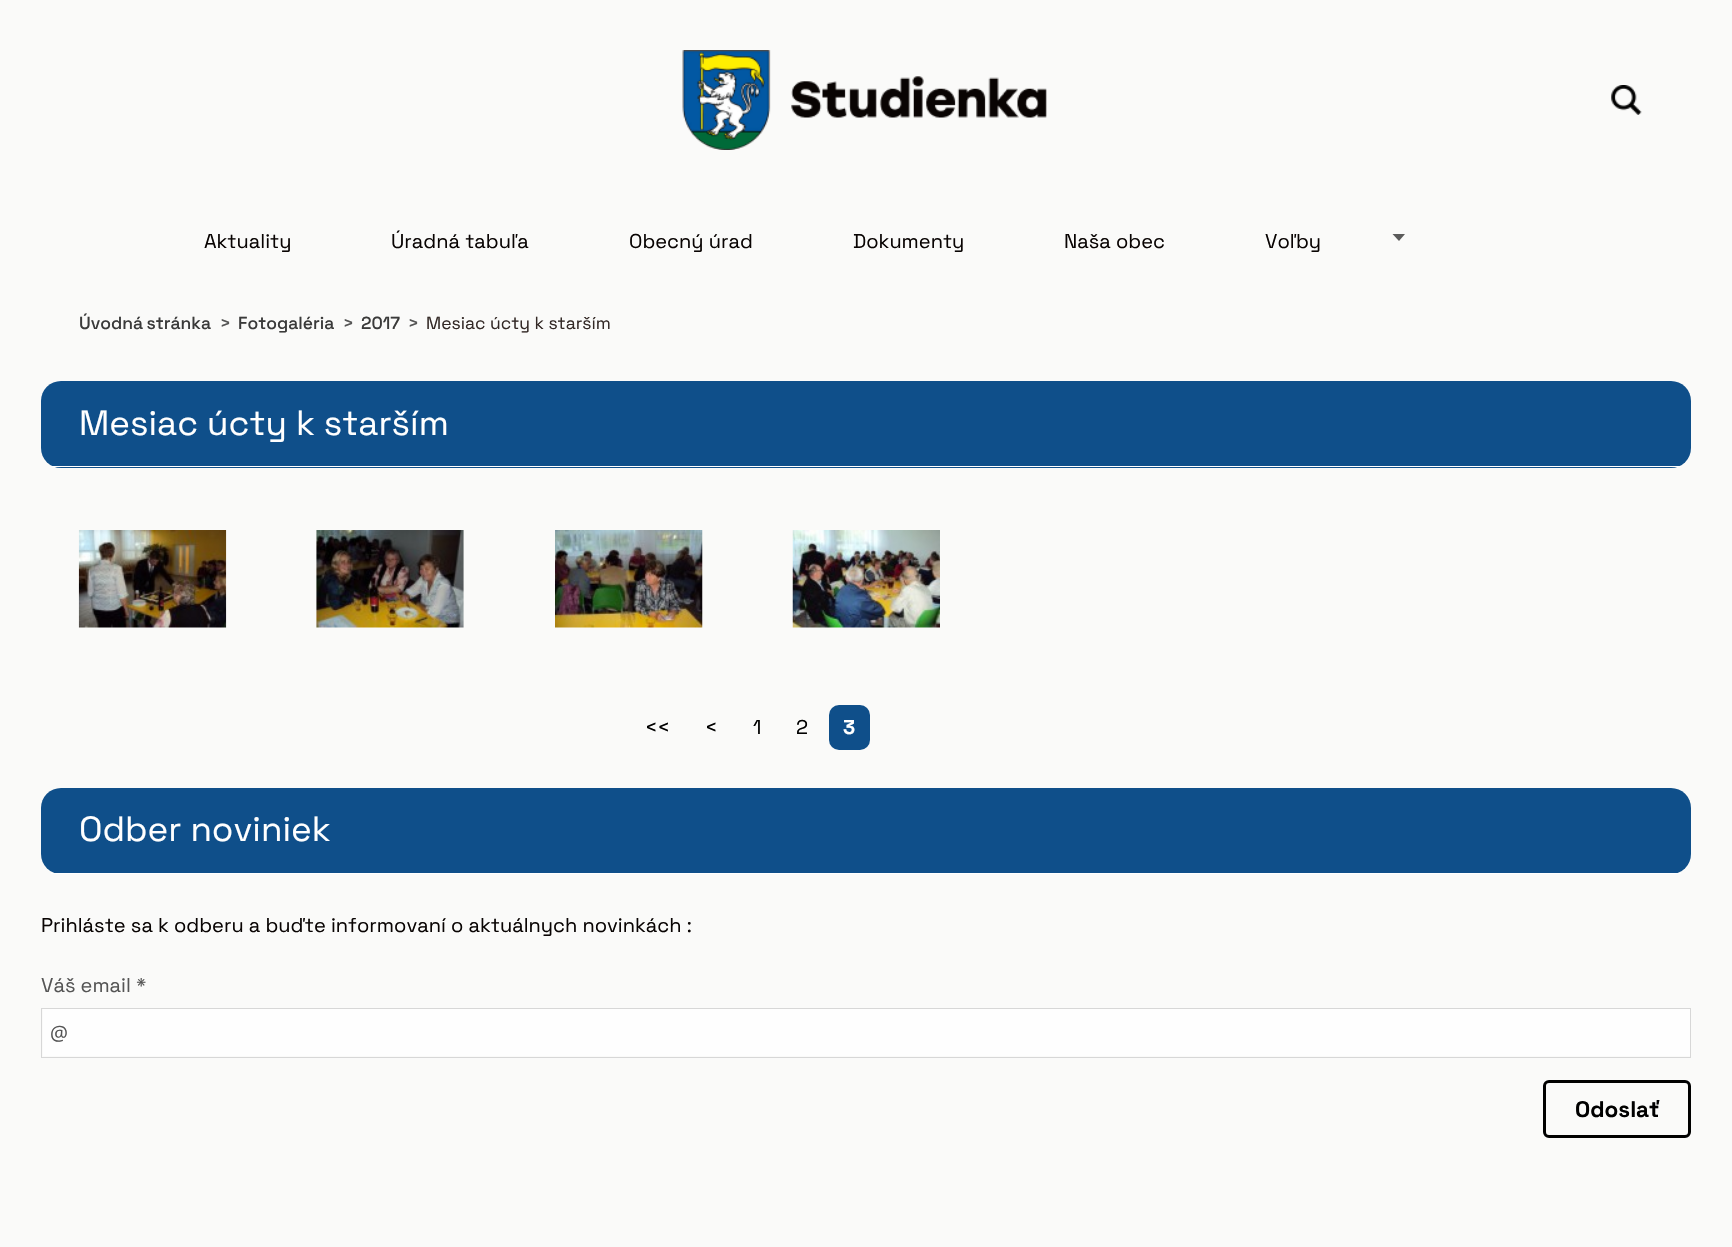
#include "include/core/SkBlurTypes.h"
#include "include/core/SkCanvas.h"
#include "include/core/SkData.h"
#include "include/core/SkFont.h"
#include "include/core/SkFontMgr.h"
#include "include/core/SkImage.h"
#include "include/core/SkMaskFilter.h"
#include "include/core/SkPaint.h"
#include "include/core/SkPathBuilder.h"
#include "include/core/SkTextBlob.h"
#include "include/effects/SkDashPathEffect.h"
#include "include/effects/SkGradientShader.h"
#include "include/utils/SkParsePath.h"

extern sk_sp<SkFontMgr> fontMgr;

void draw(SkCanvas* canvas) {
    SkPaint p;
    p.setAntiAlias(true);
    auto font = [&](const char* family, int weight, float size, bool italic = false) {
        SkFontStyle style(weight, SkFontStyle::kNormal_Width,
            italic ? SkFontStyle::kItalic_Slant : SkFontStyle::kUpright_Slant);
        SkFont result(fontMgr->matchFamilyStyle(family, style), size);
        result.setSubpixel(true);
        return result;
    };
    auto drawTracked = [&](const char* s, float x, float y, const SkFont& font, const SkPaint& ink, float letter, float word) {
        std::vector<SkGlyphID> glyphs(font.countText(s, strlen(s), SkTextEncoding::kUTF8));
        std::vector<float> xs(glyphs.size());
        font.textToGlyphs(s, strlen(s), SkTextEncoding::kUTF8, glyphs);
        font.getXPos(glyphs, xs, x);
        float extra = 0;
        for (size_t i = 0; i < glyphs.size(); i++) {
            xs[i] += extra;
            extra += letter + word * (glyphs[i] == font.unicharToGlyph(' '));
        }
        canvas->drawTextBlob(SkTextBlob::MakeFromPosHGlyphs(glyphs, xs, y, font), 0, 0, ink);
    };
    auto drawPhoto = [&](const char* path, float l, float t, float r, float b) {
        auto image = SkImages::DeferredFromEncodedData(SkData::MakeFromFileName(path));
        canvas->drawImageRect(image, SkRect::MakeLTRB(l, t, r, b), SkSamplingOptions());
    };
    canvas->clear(0xFFFAFAF9);
    drawPhoto("media/1.png", 682, 50, 1047, 150);
    drawPhoto("media/2.png", 1611, 85, 1642, 115);
    auto font1 = font("Space Grotesk", 400, 20);
    p.setColor(0xFF090403);
    {
        const struct { const char* s; float x, y; } items[] = {
            {"Aktuality", 204, 248},
            {"Úradná tabuľa", 391, 248},
            {"Obecný úrad", 629, 248},
            {"Dokumenty", 853, 248},
            {"Naša obec", 1064, 248},
            {"Voľby", 1265, 248},
        };
        for (auto [s, x, y] : items) {
            canvas->drawString(s, x, y, font1, p);
        }
    }
    p.setColor(0xFF5B5B5B);
    canvas->drawPath(SkPathBuilder().moveTo(1392.5f, 234).lineTo(1405, 234).lineTo(1399, 241).close().detach(), p);
    auto font2 = font("Space Grotesk", 500, 17.5f);
    p.setColor(0xFF3A3A3A);
    drawTracked("Úvodná stránka", 79, 329, font2, p, 0, -1);
    p.setColor(0xFF555555);
    canvas->drawString(">", 220, 329, font2, p);
    p.setColor(0xFF3A3A3A);
    canvas->drawString("Fotogaléria", 238, 329, font2, p);
    p.setColor(0xFF555555);
    canvas->drawString(">", 343, 329, font2, p);
    p.setColor(0xFF3A3A3A);
    canvas->drawString("2017", 361, 329, font2, p);
    p.setColor(0xFF555555);
    canvas->drawString(">", 408, 329, font2, p);
    auto font3 = font("Space Grotesk", 400, 17.5f);
    p.setColor(0xFF332926);
    canvas->drawString("Mesiac úcty k starším", 426, 329, font3, p);
    p.setColor(0xFF0F4F8A);
    canvas->drawRoundRect(SkRect::MakeLTRB(41, 381, 1691, 468), 20, 20, p);
    p.setColor(0xFFFFFFFF);
    canvas->drawRect(SkRect::MakeLTRB(51, 466, 1681, 467), p);
    auto font4 = font("Space Grotesk", 400, 35);
    canvas->drawString("Mesiac úcty k starším", 79, 435, font4, p);
    drawPhoto("media/3.png", 78, 530, 227, 628);
    drawPhoto("media/4.png", 316, 530, 464, 628);
    drawPhoto("media/5.png", 555, 530, 703, 628);
    drawPhoto("media/6.png", 792, 530, 940, 628);
    p.setColor(0xFF000000);
    {
        const struct { const char* s; float x, y; } items[] = {
            {"<<", 645, 734},
            {"<", 705, 734},
            {"1", 753, 734},
            {"2", 796, 734},
        };
        for (auto [s, x, y] : items) {
            canvas->drawString(s, x, y, font1, p);
        }
    }
    p.setColor(0xFF0F4F8A);
    canvas->drawRoundRect(SkRect::MakeLTRB(829, 705, 870, 750), 10, 10, p);
    auto font5 = font("Space Grotesk", 700, 20);
    p.setColor(0xFFFFFFFF);
    canvas->drawString("3", 843, 734, font5, p);
    p.setColor(0xFF0F4F8A);
    canvas->drawRoundRect(SkRect::MakeLTRB(41, 788, 1691, 874), 20, 20, p);
    p.setColor(0xFFFFFFFF);
    canvas->drawRect(SkRect::MakeLTRB(51, 873, 1681, 874), p);
    canvas->drawString("Odber noviniek", 79, 841, font4, p);
    p.setColor(0xFF090403);
    canvas->drawString("Prihláste sa k odberu a buďte informovaní o aktuálnych novinkách :", 41, 932, font1, p);
    p.setColor(0xFF555555);
    canvas->drawString("Váš email *", 41, 992, font1, p);
    p.setColor(0xFFFEFEFE);
    canvas->drawRect(SkRect::MakeLTRB(43, 1009, 1690, 1056), p);
    p.setStyle(SkPaint::kStroke_Style);
    p.setStrokeWidth(1);
    p.setColor(0xFFD7D7D7);
    canvas->drawRect(SkRect::MakeLTRB(41.5f, 1008.5f, 1690.5f, 1057.5f), p);
    auto font6 = font("Open Sans", 400, 20);
    p.setStyle(SkPaint::kFill_Style);
    p.setColor(0xFF555555);
    canvas->drawString("@", 50, 1040, font6, p);
    p.setStyle(SkPaint::kStroke_Style);
    p.setStrokeWidth(3);
    p.setColor(0xFF000000);
    canvas->drawRoundRect(SkRect::MakeLTRB(1544.5f, 1081.5f, 1689.5f, 1136.5f), 4.5f, 4.5f, p);
    auto font7 = font("Space Grotesk", 700, 22.5f);
    p.setStyle(SkPaint::kFill_Style);
    canvas->drawString("Odoslať", 1575, 1117, font7, p);
}
